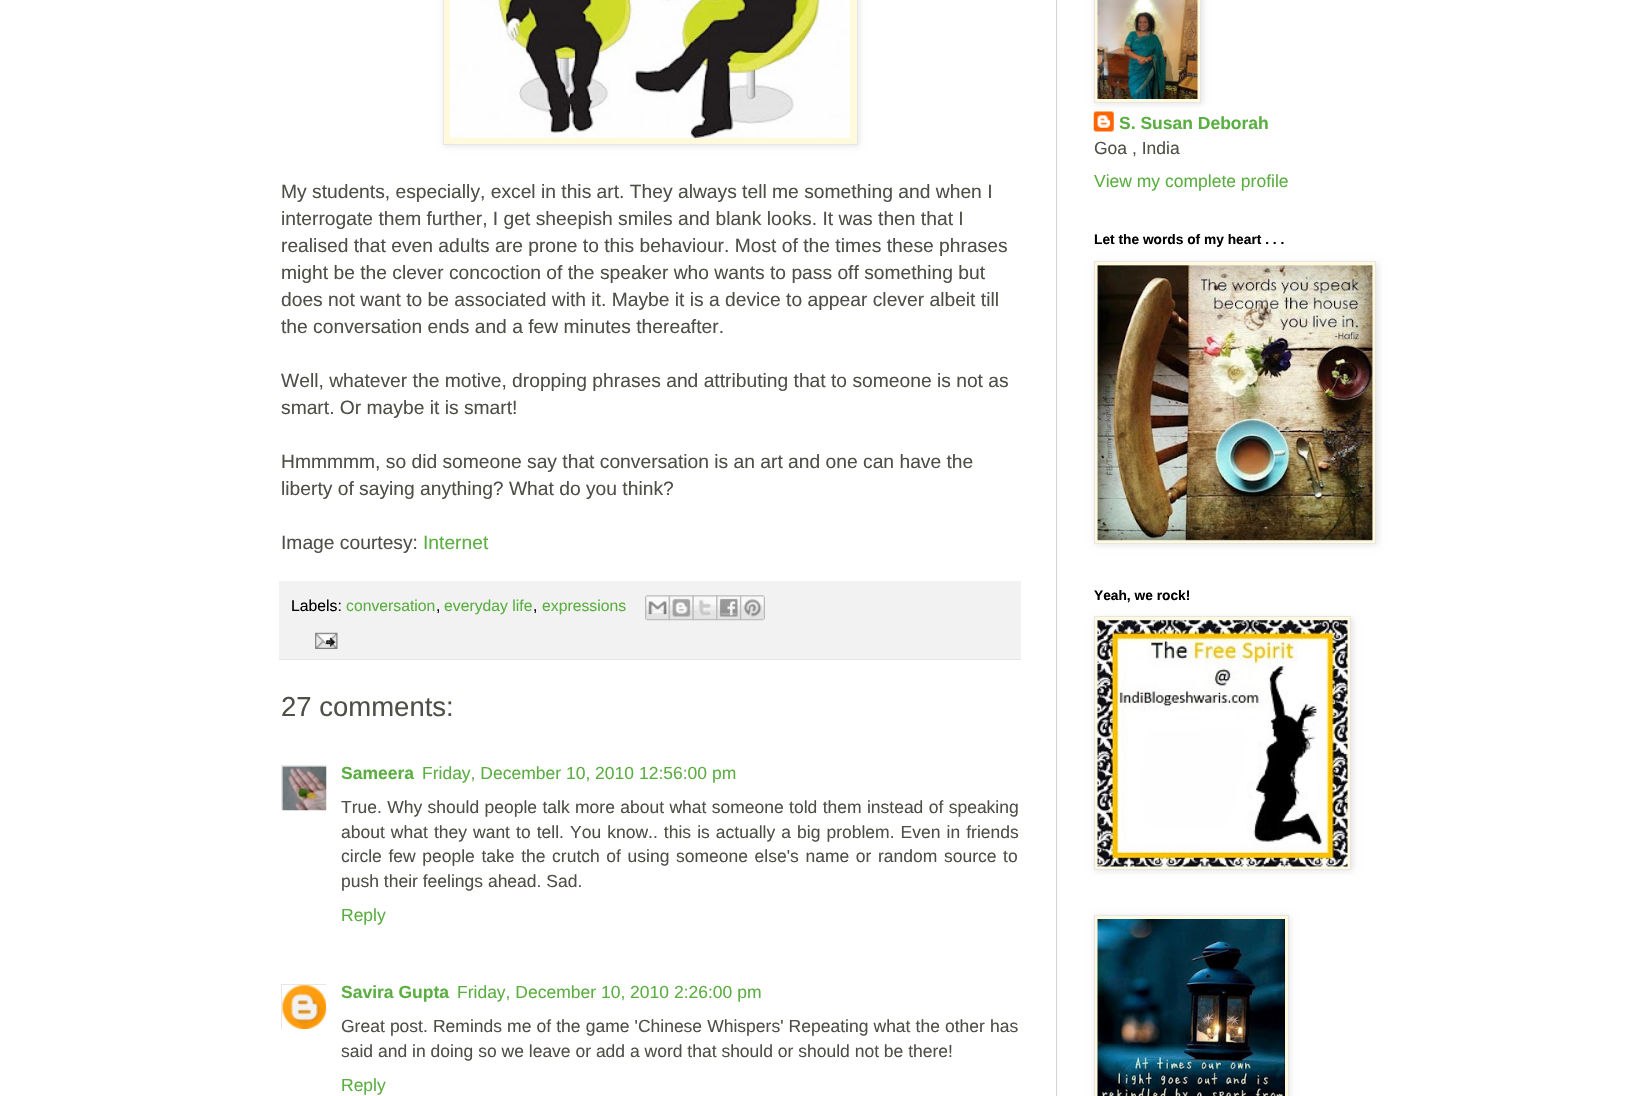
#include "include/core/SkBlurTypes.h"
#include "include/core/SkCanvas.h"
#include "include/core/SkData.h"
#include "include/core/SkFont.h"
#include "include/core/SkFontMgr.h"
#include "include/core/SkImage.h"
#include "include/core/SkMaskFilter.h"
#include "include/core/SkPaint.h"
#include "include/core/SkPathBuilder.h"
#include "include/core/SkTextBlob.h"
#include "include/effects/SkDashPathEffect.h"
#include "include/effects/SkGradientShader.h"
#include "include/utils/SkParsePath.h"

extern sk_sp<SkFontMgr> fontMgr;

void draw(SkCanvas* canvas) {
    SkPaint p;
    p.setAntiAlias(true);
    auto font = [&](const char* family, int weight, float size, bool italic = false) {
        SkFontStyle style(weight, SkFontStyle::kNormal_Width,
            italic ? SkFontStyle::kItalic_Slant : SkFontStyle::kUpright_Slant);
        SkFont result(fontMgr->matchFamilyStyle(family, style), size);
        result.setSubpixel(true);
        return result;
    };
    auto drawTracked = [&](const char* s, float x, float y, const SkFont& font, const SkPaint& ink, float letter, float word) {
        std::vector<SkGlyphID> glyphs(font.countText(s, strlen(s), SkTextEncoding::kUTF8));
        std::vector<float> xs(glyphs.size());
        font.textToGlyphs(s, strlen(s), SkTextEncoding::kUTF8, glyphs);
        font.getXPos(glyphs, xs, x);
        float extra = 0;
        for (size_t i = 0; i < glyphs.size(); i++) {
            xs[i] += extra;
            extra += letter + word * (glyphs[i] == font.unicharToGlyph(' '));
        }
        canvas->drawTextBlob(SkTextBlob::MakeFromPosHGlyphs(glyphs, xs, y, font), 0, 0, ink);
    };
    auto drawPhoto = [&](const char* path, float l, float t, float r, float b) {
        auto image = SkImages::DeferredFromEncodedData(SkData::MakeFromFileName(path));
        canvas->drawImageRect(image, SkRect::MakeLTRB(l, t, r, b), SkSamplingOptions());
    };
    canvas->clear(0xFFFFFFFF);
    p.setColor(0xFFD4D4D4);
    canvas->drawRect(SkRect::MakeLTRB(1056, 0, 1057, 1096), p);
    p.setColor(0x1A000000);
    p.setMaskFilter(SkMaskFilter::MakeBlur(kNormal_SkBlurStyle, 3));
    canvas->drawRect(SkRect::MakeLTRB(444, -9, 859, 146), p);
    p.setMaskFilter(nullptr);
    p.setColor(0xFFFFFADD);
    canvas->drawRect(SkRect::MakeLTRB(443.5f, -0.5f, 857.5f, 144.5f), p);
    p.setStyle(SkPaint::kStroke_Style);
    p.setStrokeWidth(1);
    p.setColor(0xFFE6E6E6);
    canvas->drawRect(SkRect::MakeLTRB(443.5f, -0.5f, 857.5f, 144.5f), p);
    drawPhoto("media/1.png", 450, 0, 850, 138);
    auto font1 = font("Liberation Sans", 400, 19.25f);
    p.setStyle(SkPaint::kFill_Style);
    p.setColor(0xFF4F4E47);
    {
        const struct { const char* s; float x, y; } items[] = {
            {"My students, especially, excel in this art. They always tell me something and when I", 281, 198},
            {"interrogate them further, I get sheepish smiles and blank looks. It was then that I", 281, 225},
            {"realised that even adults are prone to this behaviour. Most of the times these phrases", 281, 252},
            {"might be the clever concoction of the speaker who wants to pass off something but", 281, 279},
            {"does not want to be associated with it. Maybe it is a device to appear clever albeit till", 281, 306},
            {"the conversation ends and a few minutes thereafter.", 281, 333},
            {"Well, whatever the motive, dropping phrases and attributing that to someone is not as", 281, 387},
            {"smart. Or maybe it is smart!", 281, 414},
            {"Hmmmmm, so did someone say that conversation is an art and one can have the", 281, 468},
            {"liberty of saying anything? What do you think?", 281, 495},
            {"Image courtesy:", 281, 549},
        };
        for (auto [s, x, y] : items) {
            canvas->drawString(s, x, y, font1, p);
        }
    }
    p.setColor(0xFF5BAE41);
    canvas->drawString("Internet", 423, 549, font1, p);
    p.setColor(0xFFF2F2F2);
    canvas->drawRect(SkRect::MakeLTRB(279, 581, 1021, 659), p);
    p.setColor(0xFFE6E6E6);
    canvas->drawRect(SkRect::MakeLTRB(279, 659, 1021, 660), p);
    auto font2 = font("Liberation Sans", 400, 15.75f);
    p.setColor(0xFF000000);
    canvas->drawString("Labels:", 291, 611, font2, p);
    p.setColor(0xFF5BAE41);
    canvas->drawString("conversation", 346, 611, font2, p);
    p.setColor(0xFF000000);
    canvas->drawString(",", 436, 611, font2, p);
    p.setColor(0xFF5BAE41);
    canvas->drawString("everyday life", 444, 611, font2, p);
    p.setColor(0xFF000000);
    canvas->drawString(",", 533, 611, font2, p);
    p.setColor(0xFF5BAE41);
    canvas->drawString("expressions", 542, 611, font2, p);
    drawPhoto("media/2.png", 645, 595, 670, 621);
    drawPhoto("media/3.png", 668, 595, 694, 621);
    drawPhoto("media/4.png", 692, 595, 718, 621);
    drawPhoto("media/5.png", 716, 595, 742, 621);
    drawPhoto("media/6.png", 740, 595, 765, 621);
    drawPhoto("media/7.png", 315, 632, 338, 649);
    auto font3 = font("Liberation Sans", 400, 27.5f);
    p.setColor(0xFF4F4E47);
    canvas->drawString("27 comments:", 281, 716, font3, p);
    canvas->save();
    canvas->clipRect(SkRect::MakeLTRB(281, 765, 326, 810));
    p.setStyle(SkPaint::kStroke_Style);
    p.setColor(0xFFE6E6E6);
    canvas->drawRect(SkRect::MakeLTRB(281.5f, 765.5f, 328.5f, 812.5f), p);
    canvas->restore();
    drawPhoto("media/8.png", 282, 766, 327, 811);
    auto font4 = font("Liberation Sans", 700, 17.5f);
    p.setStyle(SkPaint::kFill_Style);
    p.setColor(0xFF5BAE41);
    canvas->drawString("Sameera", 341, 779, font4, p);
    auto font5 = font("Liberation Sans", 400, 17.5f);
    canvas->drawString("Friday, December 10, 2010 12:56:00 pm", 422, 779, font5, p);
    p.setColor(0xFF4F4E47);
    drawTracked("True. Why should people talk more about what someone told them instead of speaking", 341, 813, font5, p, 0, 0.5f);
    drawTracked("about what they want to tell. You know.. this is actually a big problem. Even in friends", 341, 838, font5, p, 0, 1.2f);
    drawTracked("circle few people take the crutch of using someone else's name or random source to", 341, 862, font5, p, 0, 1.75f);
    canvas->drawString("push their feelings ahead. Sad.", 341, 887, font5, p);
    p.setColor(0xFF5BAE41);
    canvas->drawString("Reply", 341, 921, font5, p);
    canvas->save();
    canvas->clipRect(SkRect::MakeLTRB(281, 984, 326, 1029));
    p.setStyle(SkPaint::kStroke_Style);
    p.setColor(0xFFE6E6E6);
    canvas->drawRect(SkRect::MakeLTRB(281.5f, 984.5f, 327.5f, 1029.5f), p);
    canvas->restore();
    drawPhoto("media/9.png", 282, 985, 327, 1029);
    p.setStyle(SkPaint::kFill_Style);
    p.setColor(0xFF5BAE41);
    canvas->drawString("Savira Gupta", 341, 998, font4, p);
    canvas->drawString("Friday, December 10, 2010 2:26:00 pm", 457, 998, font5, p);
    p.setColor(0xFF4F4E47);
    drawTracked("Great post. Reminds me of the game 'Chinese Whispers' Repeating what the other has", 341, 1032, font5, p, 0, 0.25f);
    canvas->drawString("said and in doing so we leave or add a word that should or should not be there!", 341, 1057, font5, p);
    p.setColor(0xFF5BAE41);
    canvas->drawString("Reply", 341, 1091, font5, p);
    drawPhoto("media/11.png", 1093, 111, 1114, 132);
    p.setColor(0x1A000000);
    p.setMaskFilter(SkMaskFilter::MakeBlur(kNormal_SkBlurStyle, 3));
    canvas->drawRect(SkRect::MakeLTRB(1095, -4, 1203, 104), p);
    p.setMaskFilter(nullptr);
    p.setColor(0xFFFFFADD);
    canvas->drawRect(SkRect::MakeLTRB(1094.5f, -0.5f, 1200.5f, 102.5f), p);
    p.setStyle(SkPaint::kStroke_Style);
    p.setColor(0xFFE6E6E6);
    canvas->drawRect(SkRect::MakeLTRB(1094.5f, -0.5f, 1200.5f, 102.5f), p);
    drawPhoto("media/10.png", 1097, 0, 1198, 99);
    p.setStyle(SkPaint::kFill_Style);
    p.setColor(0xFF5BAE41);
    canvas->drawString("S. Susan Deborah", 1119, 129, font4, p);
    p.setColor(0xFF4F4E47);
    canvas->drawString("Goa , India", 1094, 154, font5, p);
    p.setColor(0xFF5BAE41);
    canvas->drawString("View my complete profile", 1094, 187, font5, p);
    auto font6 = font("Liberation Sans", 700, 13.75f);
    p.setColor(0xFF000000);
    canvas->drawString("Let the words of my heart . . .", 1094, 244, font6, p);
    p.setColor(0x1A000000);
    p.setMaskFilter(SkMaskFilter::MakeBlur(kNormal_SkBlurStyle, 3));
    canvas->drawRect(SkRect::MakeLTRB(1095, 263, 1378, 545), p);
    p.setMaskFilter(nullptr);
    p.setColor(0xFFFFFADD);
    canvas->drawRect(SkRect::MakeLTRB(1094.5f, 261.5f, 1375.5f, 543.5f), p);
    p.setStyle(SkPaint::kStroke_Style);
    p.setColor(0xFFE6E6E6);
    canvas->drawRect(SkRect::MakeLTRB(1094.5f, 261.5f, 1375.5f, 543.5f), p);
    drawPhoto("media/12.png", 1097, 265, 1373, 541);
    p.setStyle(SkPaint::kFill_Style);
    p.setColor(0xFF000000);
    canvas->drawString("Yeah, we rock!", 1094, 600, font6, p);
    p.setColor(0x1A000000);
    p.setMaskFilter(SkMaskFilter::MakeBlur(kNormal_SkBlurStyle, 3));
    canvas->drawRect(SkRect::MakeLTRB(1095, 618, 1353, 871), p);
    p.setMaskFilter(nullptr);
    p.setColor(0xFFFFFADD);
    canvas->drawRect(SkRect::MakeLTRB(1094.5f, 616.5f, 1350.5f, 869.5f), p);
    p.setStyle(SkPaint::kStroke_Style);
    p.setColor(0xFFE6E6E6);
    canvas->drawRect(SkRect::MakeLTRB(1094.5f, 616.5f, 1350.5f, 869.5f), p);
    drawPhoto("media/13.png", 1097, 620, 1348, 867);
    p.setStyle(SkPaint::kFill_Style);
    p.setColor(0x1A000000);
    p.setMaskFilter(SkMaskFilter::MakeBlur(kNormal_SkBlurStyle, 3));
    canvas->drawRect(SkRect::MakeLTRB(1095, 916, 1290, 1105), p);
    p.setMaskFilter(nullptr);
    p.setColor(0xFFFFFADD);
    canvas->drawRect(SkRect::MakeLTRB(1094.5f, 915.5f, 1288.5f, 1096.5f), p);
    p.setStyle(SkPaint::kStroke_Style);
    p.setColor(0xFFE6E6E6);
    canvas->drawRect(SkRect::MakeLTRB(1094.5f, 915.5f, 1288.5f, 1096.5f), p);
    drawPhoto("media/14.png", 1097, 919, 1285, 1096);
}
